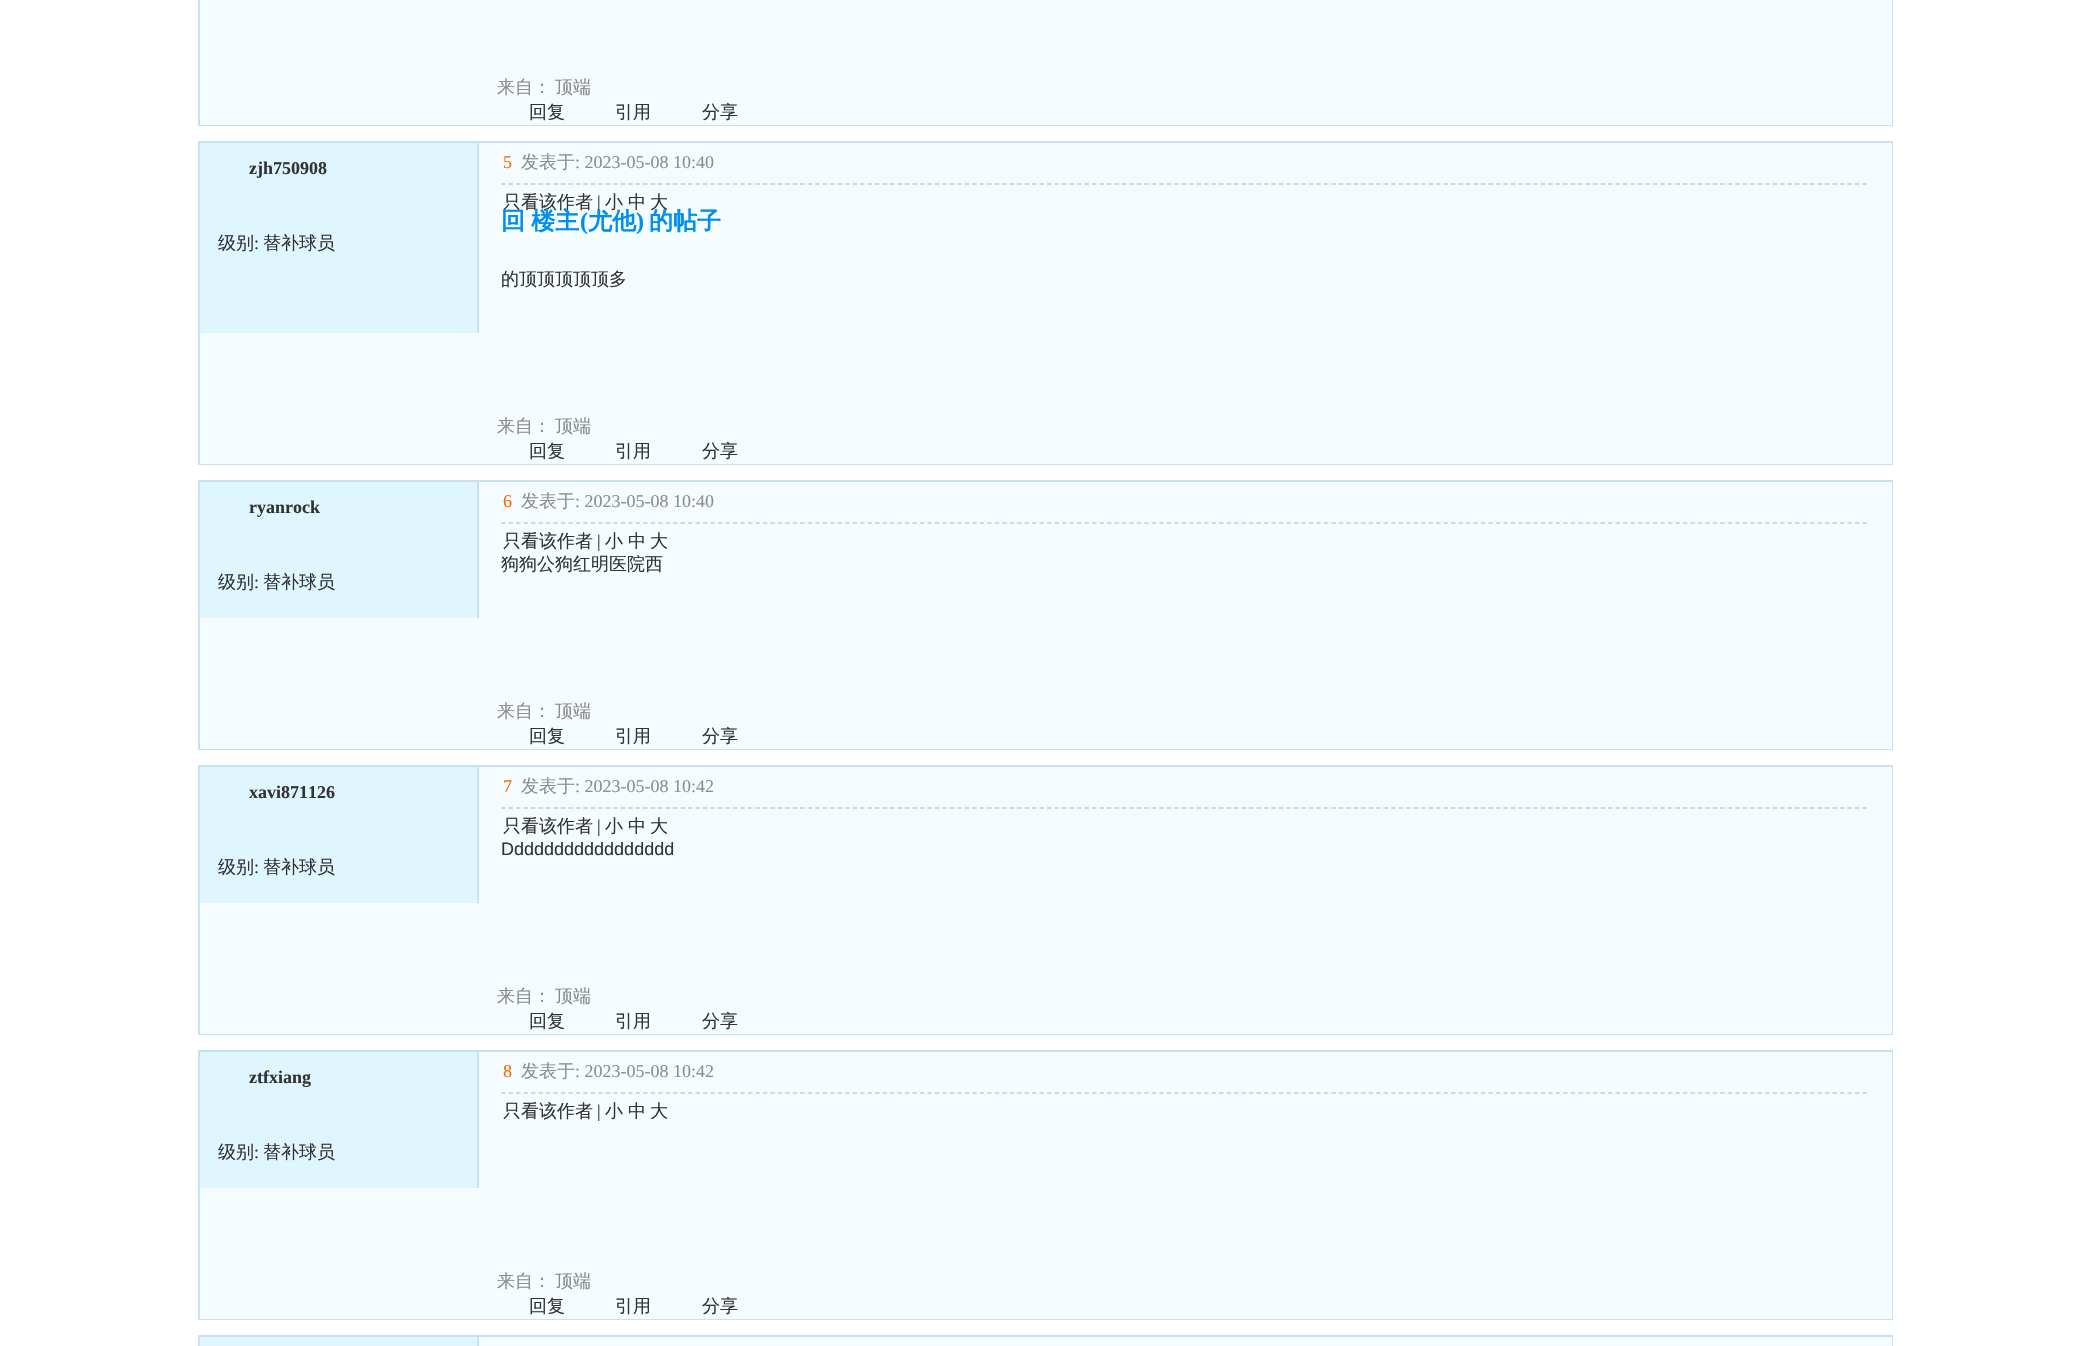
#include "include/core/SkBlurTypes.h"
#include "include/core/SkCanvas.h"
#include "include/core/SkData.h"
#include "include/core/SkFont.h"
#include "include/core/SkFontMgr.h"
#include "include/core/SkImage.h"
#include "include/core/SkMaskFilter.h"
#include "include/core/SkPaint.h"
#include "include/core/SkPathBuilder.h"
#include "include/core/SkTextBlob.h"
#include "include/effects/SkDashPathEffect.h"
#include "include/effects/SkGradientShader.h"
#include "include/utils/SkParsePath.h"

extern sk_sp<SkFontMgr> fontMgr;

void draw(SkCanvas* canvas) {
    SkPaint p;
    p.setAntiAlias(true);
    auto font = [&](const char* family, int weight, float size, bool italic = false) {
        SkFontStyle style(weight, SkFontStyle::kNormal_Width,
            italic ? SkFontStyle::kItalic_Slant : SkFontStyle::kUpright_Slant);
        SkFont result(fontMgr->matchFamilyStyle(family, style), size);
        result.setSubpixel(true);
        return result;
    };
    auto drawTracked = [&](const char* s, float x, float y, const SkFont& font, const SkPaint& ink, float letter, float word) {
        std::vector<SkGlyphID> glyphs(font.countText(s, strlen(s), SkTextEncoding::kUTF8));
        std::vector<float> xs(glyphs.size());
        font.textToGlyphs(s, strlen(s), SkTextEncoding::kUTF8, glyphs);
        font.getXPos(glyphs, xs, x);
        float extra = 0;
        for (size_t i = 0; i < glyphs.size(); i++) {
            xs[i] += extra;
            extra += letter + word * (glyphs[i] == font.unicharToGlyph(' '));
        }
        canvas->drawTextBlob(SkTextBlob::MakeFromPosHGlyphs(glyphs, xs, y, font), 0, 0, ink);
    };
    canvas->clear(0xFFFFFFFF);
    p.setStyle(SkPaint::kStroke_Style);
    p.setStrokeWidth(2);
    p.setColor(0xFFC7E1EF);
    canvas->drawRect(SkRect::MakeLTRB(199, -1, 1892, 125), p);
    p.setStyle(SkPaint::kFill_Style);
    p.setColor(0xFFF5FCFF);
    canvas->drawRect(SkRect::MakeLTRB(200, 0, 1892, 125), p);
    auto font1 = font("WenQuanYi Zen Hei", 500, 18);
    p.setColor(0xFF908C8C);
    canvas->drawString("来自：", 497, 93, font1, p);
    p.setColor(0xFF888888);
    canvas->drawString("顶端", 555, 93, font1, p);
    p.setColor(0xFF333333);
    {
        const struct { const char* s; float x, y; } items[] = {
            {"回复", 529, 118},
            {"引用", 615, 118},
            {"分享", 702, 118},
        };
        for (auto [s, x, y] : items) {
            canvas->drawString(s, x, y, font1, p);
        }
    }
    p.setStyle(SkPaint::kStroke_Style);
    p.setColor(0xFFC7E1EF);
    canvas->drawRect(SkRect::MakeLTRB(199, 142, 1892, 464), p);
    p.setStyle(SkPaint::kFill_Style);
    p.setColor(0xFFDFF6FF);
    canvas->drawRect(SkRect::MakeLTRB(200, 143, 477, 333), p);
    p.setColor(0xFFC7E1EF);
    canvas->drawRect(SkRect::MakeLTRB(477, 143, 479, 333), p);
    auto font2 = font("Liberation Serif", 700, 18);
    p.setColor(0xFF333333);
    canvas->drawString("zjh750908", 249, 174, font2, p);
    canvas->drawString("级别", 218, 249, font1, p);
    auto font3 = font("Liberation Serif", 400, 18);
    canvas->drawString(":", 254, 249, font3, p);
    canvas->drawString("替补球员", 263, 249, font1, p);
    p.setColor(0xFFF5FCFF);
    canvas->drawRect(SkRect::MakeLTRB(479, 143, 1892, 333), p);
    p.setStyle(SkPaint::kStroke_Style);
    p.setStrokeWidth(1.5f);
    p.setColor(0xFFCCCCCC);
    p.setPathEffect(SkDashPathEffect::Make({{4.5f, 2.98f}}, 0));
    canvas->drawPath(SkPathBuilder().moveTo(501, 184).lineTo(1869, 184).detach(), p);
    p.setPathEffect(nullptr);
    p.setStyle(SkPaint::kFill_Style);
    p.setColor(0xFFFF6600);
    canvas->drawString("5", 503, 168, font3, p);
    p.setColor(0xFF908C8C);
    canvas->drawString("发表于", 521, 168, font1, p);
    canvas->drawString(": 2023-05-08 10:40", 575, 168, font3, p);
    p.setColor(0xFF333333);
    canvas->drawString("只看该作者", 503, 208, font1, p);
    canvas->drawString("|", 597, 208, font3, p);
    {
        const struct { const char* s; float x, y; } items[] = {
            {"小", 605, 208},
            {"中", 628, 208},
            {"大", 650, 208},
        };
        for (auto [s, x, y] : items) {
            canvas->drawString(s, x, y, font1, p);
        }
    }
    auto font4 = font("WenQuanYi Zen Hei", 700, 24);
    p.setColor(0xFF008EF1);
    drawTracked("回 楼主", 501, 229, font4, p, 0, -1);
    auto font5 = font("Liberation Serif", 700, 24);
    canvas->drawString("(", 580, 229, font5, p);
    canvas->drawString("尤他", 588, 229, font4, p);
    canvas->drawString(")", 636, 229, font5, p);
    canvas->drawString("的帖子", 649, 229, font4, p);
    p.setColor(0xFF333333);
    canvas->drawString("的顶顶顶顶顶多", 501, 285, font1, p);
    p.setColor(0xFFF5FCFF);
    canvas->drawRect(SkRect::MakeLTRB(200, 333, 1892, 464), p);
    p.setColor(0xFF908C8C);
    canvas->drawString("来自：", 497, 432, font1, p);
    p.setColor(0xFF888888);
    canvas->drawString("顶端", 555, 432, font1, p);
    p.setColor(0xFF333333);
    {
        const struct { const char* s; float x, y; } items[] = {
            {"回复", 529, 457},
            {"引用", 615, 457},
            {"分享", 702, 457},
        };
        for (auto [s, x, y] : items) {
            canvas->drawString(s, x, y, font1, p);
        }
    }
    p.setStyle(SkPaint::kStroke_Style);
    p.setStrokeWidth(2);
    p.setColor(0xFFC7E1EF);
    canvas->drawRect(SkRect::MakeLTRB(199, 481, 1892, 749), p);
    p.setStyle(SkPaint::kFill_Style);
    p.setColor(0xFFDFF6FF);
    canvas->drawRect(SkRect::MakeLTRB(200, 482, 477, 618), p);
    p.setColor(0xFFC7E1EF);
    canvas->drawRect(SkRect::MakeLTRB(477, 482, 479, 618), p);
    p.setColor(0xFF333333);
    canvas->drawString("ryanrock", 249, 513, font2, p);
    canvas->drawString("级别", 218, 588, font1, p);
    canvas->drawString(":", 254, 588, font3, p);
    canvas->drawString("替补球员", 263, 588, font1, p);
    p.setColor(0xFFF5FCFF);
    canvas->drawRect(SkRect::MakeLTRB(479, 482, 1892, 618), p);
    p.setStyle(SkPaint::kStroke_Style);
    p.setStrokeWidth(1.5f);
    p.setColor(0xFFCCCCCC);
    p.setPathEffect(SkDashPathEffect::Make({{4.5f, 2.98f}}, 0));
    canvas->drawPath(SkPathBuilder().moveTo(501, 523).lineTo(1869, 523).detach(), p);
    p.setPathEffect(nullptr);
    p.setStyle(SkPaint::kFill_Style);
    p.setColor(0xFFFF6600);
    canvas->drawString("6", 503, 507, font3, p);
    p.setColor(0xFF908C8C);
    canvas->drawString("发表于", 521, 507, font1, p);
    canvas->drawString(": 2023-05-08 10:40", 575, 507, font3, p);
    p.setColor(0xFF333333);
    canvas->drawString("只看该作者", 503, 547, font1, p);
    canvas->drawString("|", 597, 547, font3, p);
    {
        const struct { const char* s; float x, y; } items[] = {
            {"小", 605, 547},
            {"中", 628, 547},
            {"大", 650, 547},
            {"狗狗公狗红明医院西", 501, 570},
        };
        for (auto [s, x, y] : items) {
            canvas->drawString(s, x, y, font1, p);
        }
    }
    p.setColor(0xFFF5FCFF);
    canvas->drawRect(SkRect::MakeLTRB(200, 618, 1892, 749), p);
    p.setColor(0xFF908C8C);
    canvas->drawString("来自：", 497, 717, font1, p);
    p.setColor(0xFF888888);
    canvas->drawString("顶端", 555, 717, font1, p);
    p.setColor(0xFF333333);
    {
        const struct { const char* s; float x, y; } items[] = {
            {"回复", 529, 742},
            {"引用", 615, 742},
            {"分享", 702, 742},
        };
        for (auto [s, x, y] : items) {
            canvas->drawString(s, x, y, font1, p);
        }
    }
    p.setStyle(SkPaint::kStroke_Style);
    p.setStrokeWidth(2);
    p.setColor(0xFFC7E1EF);
    canvas->drawRect(SkRect::MakeLTRB(199, 766, 1892, 1034), p);
    p.setStyle(SkPaint::kFill_Style);
    p.setColor(0xFFDFF6FF);
    canvas->drawRect(SkRect::MakeLTRB(200, 767, 477, 903), p);
    p.setColor(0xFFC7E1EF);
    canvas->drawRect(SkRect::MakeLTRB(477, 767, 479, 903), p);
    p.setColor(0xFF333333);
    canvas->drawString("xavi871126", 249, 798, font2, p);
    canvas->drawString("级别", 218, 873, font1, p);
    canvas->drawString(":", 254, 873, font3, p);
    canvas->drawString("替补球员", 263, 873, font1, p);
    p.setColor(0xFFF5FCFF);
    canvas->drawRect(SkRect::MakeLTRB(479, 767, 1892, 903), p);
    p.setStyle(SkPaint::kStroke_Style);
    p.setStrokeWidth(1.5f);
    p.setColor(0xFFCCCCCC);
    p.setPathEffect(SkDashPathEffect::Make({{4.5f, 2.98f}}, 0));
    canvas->drawPath(SkPathBuilder().moveTo(501, 808).lineTo(1869, 808).detach(), p);
    p.setPathEffect(nullptr);
    p.setStyle(SkPaint::kFill_Style);
    p.setColor(0xFFFF6600);
    canvas->drawString("7", 503, 792, font3, p);
    p.setColor(0xFF908C8C);
    canvas->drawString("发表于", 521, 792, font1, p);
    canvas->drawString(": 2023-05-08 10:42", 575, 792, font3, p);
    p.setColor(0xFF333333);
    canvas->drawString("只看该作者", 503, 832, font1, p);
    canvas->drawString("|", 597, 832, font3, p);
    {
        const struct { const char* s; float x, y; } items[] = {
            {"小", 605, 832},
            {"中", 628, 832},
            {"大", 650, 832},
        };
        for (auto [s, x, y] : items) {
            canvas->drawString(s, x, y, font1, p);
        }
    }
    auto font6 = font("Liberation Sans", 400, 18);
    canvas->drawString("Ddddddddddddddddd", 501, 855, font6, p);
    p.setColor(0xFFF5FCFF);
    canvas->drawRect(SkRect::MakeLTRB(200, 903, 1892, 1034), p);
    p.setColor(0xFF908C8C);
    canvas->drawString("来自：", 497, 1002, font1, p);
    p.setColor(0xFF888888);
    canvas->drawString("顶端", 555, 1002, font1, p);
    p.setColor(0xFF333333);
    {
        const struct { const char* s; float x, y; } items[] = {
            {"回复", 529, 1027},
            {"引用", 615, 1027},
            {"分享", 702, 1027},
        };
        for (auto [s, x, y] : items) {
            canvas->drawString(s, x, y, font1, p);
        }
    }
    p.setStyle(SkPaint::kStroke_Style);
    p.setStrokeWidth(2);
    p.setColor(0xFFC7E1EF);
    canvas->drawRect(SkRect::MakeLTRB(199, 1051, 1892, 1319), p);
    p.setStyle(SkPaint::kFill_Style);
    p.setColor(0xFFDFF6FF);
    canvas->drawRect(SkRect::MakeLTRB(200, 1052, 477, 1188), p);
    p.setColor(0xFFC7E1EF);
    canvas->drawRect(SkRect::MakeLTRB(477, 1052, 479, 1188), p);
    p.setColor(0xFF333333);
    canvas->drawString("ztfxiang", 249, 1083, font2, p);
    canvas->drawString("级别", 218, 1158, font1, p);
    canvas->drawString(":", 254, 1158, font3, p);
    canvas->drawString("替补球员", 263, 1158, font1, p);
    p.setColor(0xFFF5FCFF);
    canvas->drawRect(SkRect::MakeLTRB(479, 1052, 1892, 1188), p);
    p.setStyle(SkPaint::kStroke_Style);
    p.setStrokeWidth(1.5f);
    p.setColor(0xFFCCCCCC);
    p.setPathEffect(SkDashPathEffect::Make({{4.5f, 2.98f}}, 0));
    canvas->drawPath(SkPathBuilder().moveTo(501, 1093).lineTo(1869, 1093).detach(), p);
    p.setPathEffect(nullptr);
    p.setStyle(SkPaint::kFill_Style);
    p.setColor(0xFFFF6600);
    canvas->drawString("8", 503, 1077, font3, p);
    p.setColor(0xFF908C8C);
    canvas->drawString("发表于", 521, 1077, font1, p);
    canvas->drawString(": 2023-05-08 10:42", 575, 1077, font3, p);
    p.setColor(0xFF333333);
    canvas->drawString("只看该作者", 503, 1117, font1, p);
    canvas->drawString("|", 597, 1117, font3, p);
    {
        const struct { const char* s; float x, y; } items[] = {
            {"小", 605, 1117},
            {"中", 628, 1117},
            {"大", 650, 1117},
        };
        for (auto [s, x, y] : items) {
            canvas->drawString(s, x, y, font1, p);
        }
    }
    p.setColor(0xFFF5FCFF);
    canvas->drawRect(SkRect::MakeLTRB(200, 1188, 1892, 1319), p);
    p.setColor(0xFF908C8C);
    canvas->drawString("来自：", 497, 1287, font1, p);
    p.setColor(0xFF888888);
    canvas->drawString("顶端", 555, 1287, font1, p);
    p.setColor(0xFF333333);
    {
        const struct { const char* s; float x, y; } items[] = {
            {"回复", 529, 1312},
            {"引用", 615, 1312},
            {"分享", 702, 1312},
        };
        for (auto [s, x, y] : items) {
            canvas->drawString(s, x, y, font1, p);
        }
    }
    p.setStyle(SkPaint::kStroke_Style);
    p.setStrokeWidth(2);
    p.setColor(0xFFC7E1EF);
    canvas->drawRect(SkRect::MakeLTRB(199, 1336, 1892, 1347), p);
    p.setStyle(SkPaint::kFill_Style);
    {
        const struct { float l, t, r, b; SkColor color; } items[] = {
            {200, 1337, 477, 1346, 0xFFDFF6FF},
            {477, 1337, 479, 1346, 0xFFC7E1EF},
            {479, 1337, 1892, 1346, 0xFFF5FCFF},
        };
        for (auto [l, t, r, b, color] : items) {
            p.setColor(color);
            canvas->drawRect(SkRect::MakeLTRB(l, t, r, b), p);
        }
    }
}
